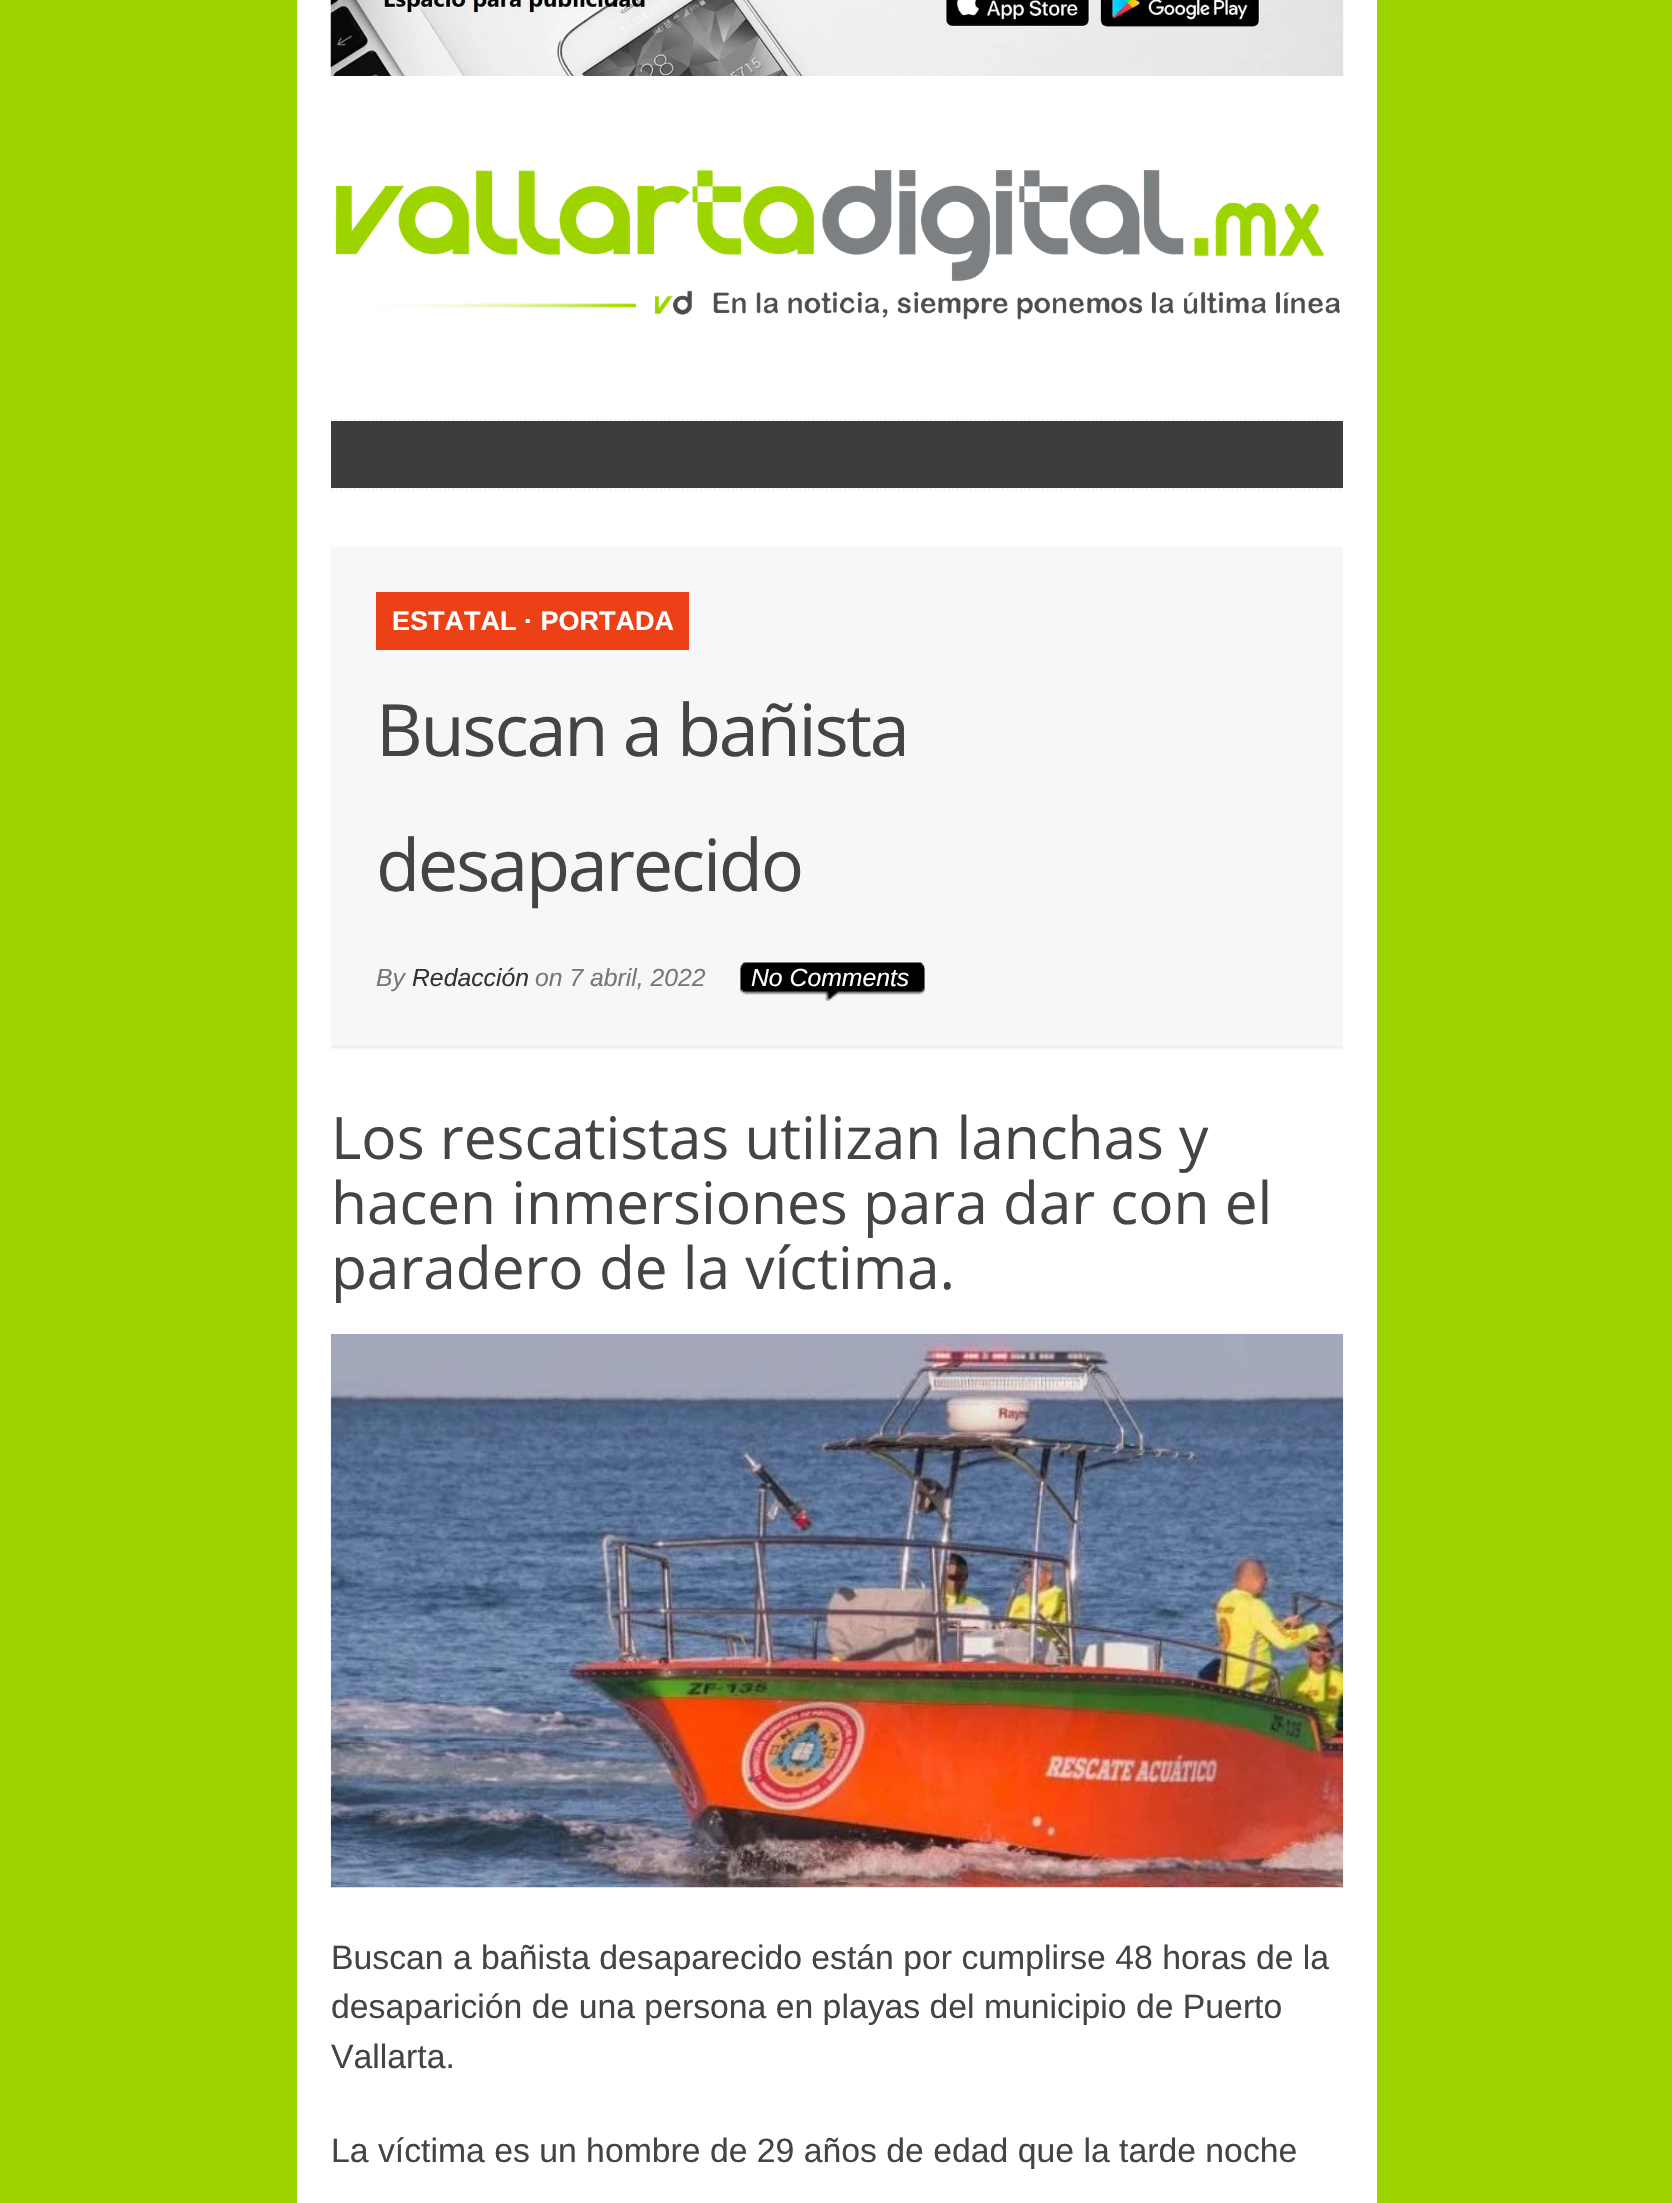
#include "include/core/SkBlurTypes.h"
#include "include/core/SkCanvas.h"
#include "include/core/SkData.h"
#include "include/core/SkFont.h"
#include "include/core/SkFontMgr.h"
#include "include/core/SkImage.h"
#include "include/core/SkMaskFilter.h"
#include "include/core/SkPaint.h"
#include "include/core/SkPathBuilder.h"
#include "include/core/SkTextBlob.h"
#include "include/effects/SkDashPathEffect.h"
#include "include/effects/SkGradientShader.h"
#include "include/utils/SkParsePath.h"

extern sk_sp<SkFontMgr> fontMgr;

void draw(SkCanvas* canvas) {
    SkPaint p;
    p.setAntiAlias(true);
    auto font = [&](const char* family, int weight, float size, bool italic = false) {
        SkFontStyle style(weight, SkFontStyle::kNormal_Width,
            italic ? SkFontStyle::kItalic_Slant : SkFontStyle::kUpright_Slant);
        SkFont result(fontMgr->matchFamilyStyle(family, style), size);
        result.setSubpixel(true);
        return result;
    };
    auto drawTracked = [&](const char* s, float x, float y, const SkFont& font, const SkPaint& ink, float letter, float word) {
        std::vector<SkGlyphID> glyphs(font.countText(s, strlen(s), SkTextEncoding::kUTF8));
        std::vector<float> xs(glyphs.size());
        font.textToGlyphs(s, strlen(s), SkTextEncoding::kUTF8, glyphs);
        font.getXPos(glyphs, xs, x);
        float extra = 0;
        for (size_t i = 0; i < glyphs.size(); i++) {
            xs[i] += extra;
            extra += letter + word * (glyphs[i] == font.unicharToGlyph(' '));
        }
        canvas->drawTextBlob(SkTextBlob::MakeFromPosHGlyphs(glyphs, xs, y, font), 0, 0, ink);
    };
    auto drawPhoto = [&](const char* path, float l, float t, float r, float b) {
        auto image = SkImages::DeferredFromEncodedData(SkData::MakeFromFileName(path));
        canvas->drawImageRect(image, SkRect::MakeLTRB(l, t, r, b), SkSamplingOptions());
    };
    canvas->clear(0xFF9DD400);
    p.setColor(0xFFFFFFFF);
    canvas->drawRect(SkRect::MakeLTRB(297, 0, 1377, 2203), p);
    drawPhoto("media/1.png", 330, 0, 1344, 76);
    drawPhoto("media/2.png", 335, 170, 1340, 320);
    p.setStyle(SkPaint::kStroke_Style);
    p.setStrokeWidth(2.2f);
    p.setColor(0xFFEFEFEF);
    p.setPathEffect(SkDashPathEffect::Make({{2.25f, 2.25f}}, 0));
    canvas->drawPath(SkPathBuilder().moveTo(331, 419.5f).lineTo(1343, 419.5f).detach(), p);
    p.setPathEffect(nullptr);
    p.setPathEffect(SkDashPathEffect::Make({{2.25f, 2.25f}}, 0));
    canvas->drawPath(SkPathBuilder().moveTo(331, 489.5f).lineTo(1343, 489.5f).detach(), p);
    p.setPathEffect(nullptr);
    p.setStyle(SkPaint::kFill_Style);
    {
        const struct { float l, t, r, b; SkColor color; } items[] = {
            {331, 421, 1343, 488, 0xFF3D3D3D},
            {331, 547, 1343, 1049, 0xFFF5F7F9},
            {331, 1046, 1343, 1048, 0xFFEFEFEF},
            {376, 592, 689, 650, 0xFFEC4017},
        };
        for (auto [l, t, r, b, color] : items) {
            p.setColor(color);
            canvas->drawRect(SkRect::MakeLTRB(l, t, r, b), p);
        }
    }
    auto font1 = font("Liberation Sans", 700, 27);
    p.setColor(0xFFFFFFFF);
    canvas->drawString("ESTATAL · PORTADA", 392, 630, font1, p);
    auto font2 = font("Open Sans", 400, 72);
    p.setColor(0xFF444444);
    drawTracked("Buscan a bañista", 376, 756, font2, p, -2.25f, 0);
    drawTracked("desaparecido", 376, 891, font2, p, -2.25f, 0);
    auto font3 = font("Liberation Sans", 400, 24.75f, true);
    p.setColor(0xFF777777);
    canvas->drawString("By", 376, 986, font3, p);
    p.setColor(0xFF333333);
    canvas->drawString("Redacción", 412, 986, font3, p);
    p.setColor(0xFF777777);
    canvas->drawString("on 7 abril, 2022", 535, 986, font3, p);
    drawPhoto("media/3.png", 740, 962, 925, 1001);
    p.setColor(0xFFFFFFFF);
    canvas->drawString("No Comments", 751, 986, font3, p);
    auto font4 = font("Open Sans", 400, 58.5f);
    p.setColor(0xFF444444);
    {
        const struct { const char* s; float x, y; } items[] = {
            {"Los rescatistas utilizan lanchas y", 331, 1159},
            {"hacen inmersiones para dar con el", 331, 1224},
            {"paradero de la víctima.", 331, 1289},
        };
        for (auto [s, x, y] : items) {
            canvas->drawString(s, x, y, font4, p);
        }
    }
    drawPhoto("media/4.png", 330, 1333, 1344, 1888);
    auto font5 = font("Liberation Sans", 400, 33.75f);
    {
        const struct { const char* s; float x, y; } items[] = {
            {"Buscan a bañista desaparecido están por cumplirse 48 horas de la", 331, 1969},
            {"desaparición de una persona en playas del municipio de Puerto", 331, 2018},
            {"Vallarta.", 331, 2068},
            {"La víctima es un hombre de 29 años de edad que la tarde noche", 331, 2162},
        };
        for (auto [s, x, y] : items) {
            canvas->drawString(s, x, y, font5, p);
        }
    }
}
